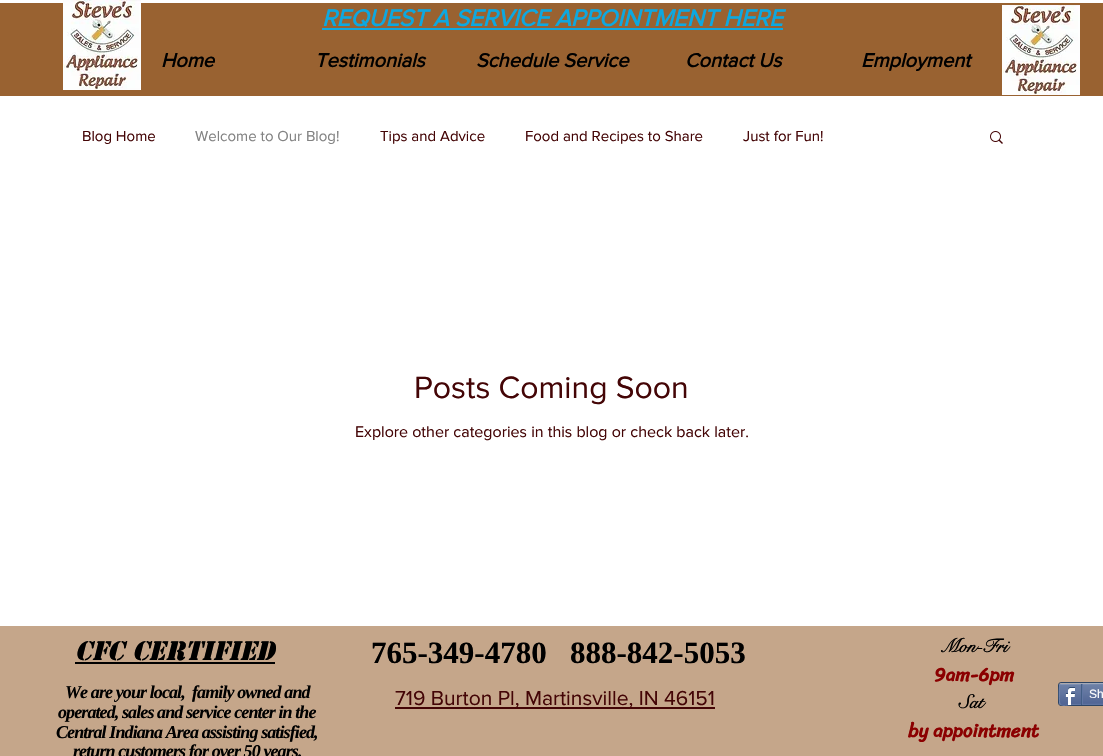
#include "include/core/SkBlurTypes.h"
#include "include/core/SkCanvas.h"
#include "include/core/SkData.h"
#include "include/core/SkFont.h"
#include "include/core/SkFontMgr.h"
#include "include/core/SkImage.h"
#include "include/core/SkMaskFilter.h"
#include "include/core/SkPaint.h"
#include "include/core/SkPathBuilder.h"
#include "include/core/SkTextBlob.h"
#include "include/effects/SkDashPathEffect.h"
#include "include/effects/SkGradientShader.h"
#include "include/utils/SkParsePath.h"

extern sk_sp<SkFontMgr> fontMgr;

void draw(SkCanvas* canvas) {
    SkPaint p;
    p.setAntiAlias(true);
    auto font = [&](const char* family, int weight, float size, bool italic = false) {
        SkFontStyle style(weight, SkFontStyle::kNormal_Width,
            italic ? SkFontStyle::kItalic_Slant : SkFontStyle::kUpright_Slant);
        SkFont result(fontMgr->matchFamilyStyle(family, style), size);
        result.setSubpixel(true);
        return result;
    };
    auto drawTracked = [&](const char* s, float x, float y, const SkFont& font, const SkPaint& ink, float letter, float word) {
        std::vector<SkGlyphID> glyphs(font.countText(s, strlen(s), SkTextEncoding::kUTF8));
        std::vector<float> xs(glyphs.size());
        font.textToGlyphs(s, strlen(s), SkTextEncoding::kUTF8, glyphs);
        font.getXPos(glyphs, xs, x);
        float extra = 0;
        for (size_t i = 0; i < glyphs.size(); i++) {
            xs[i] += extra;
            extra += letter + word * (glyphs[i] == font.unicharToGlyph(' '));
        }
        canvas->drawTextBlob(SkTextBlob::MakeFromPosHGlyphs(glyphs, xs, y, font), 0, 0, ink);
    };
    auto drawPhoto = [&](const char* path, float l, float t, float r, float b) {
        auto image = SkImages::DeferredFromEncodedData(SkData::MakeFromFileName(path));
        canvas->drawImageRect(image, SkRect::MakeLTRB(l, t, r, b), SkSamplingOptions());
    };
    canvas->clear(0xFFFFFFFF);
    p.setColor(0xFF996231);
    canvas->drawRect(SkRect::MakeLTRB(0, 3, 1103, 96), p);
    drawPhoto("media/1.png", 63, 0, 141, 90);
    auto font1 = font("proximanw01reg", 700, 24, true);
    p.setColor(0xFF0DA8E0);
    canvas->drawString("REQUEST A SERVICE APPOINTMENT HERE", 322, 26, font1, p);
    canvas->drawRect(SkRect::MakeLTRB(322, 28, 783, 30), p);
    drawPhoto("media/1.png", 1002, 5, 1080, 95);
    auto font2 = font("proximanw01reg", 700, 20, true);
    p.setColor(0xFF000000);
    {
        const struct { const char* s; float x, y; } items[] = {
            {"Home", 161, 67},
            {"Testimonials", 315, 67},
            {"Schedule Service", 476, 67},
            {"Contact Us", 685, 67},
            {"Employment", 861, 67},
        };
        for (auto [s, x, y] : items) {
            canvas->drawString(s, x, y, font2, p);
        }
    }
    auto font3 = font("proximanw01reg", 400, 15);
    p.setColor(0xFF440506);
    canvas->drawString("Blog Home", 82, 141, font3, p);
    p.setColor(0xFF828282);
    canvas->drawString("Welcome to Our Blog!", 195, 141, font3, p);
    p.setColor(0xFF440506);
    {
        const struct { const char* s; float x, y; } items[] = {
            {"Tips and Advice", 380, 141},
            {"Food and Recipes to Share", 525, 141},
            {"Just for Fun!", 743, 141},
        };
        for (auto [s, x, y] : items) {
            canvas->drawString(s, x, y, font3, p);
        }
    }
    drawPhoto("media/2.png", 990, 131, 1003, 144);
    auto font4 = font("proximanw01reg", 400, 32);
    canvas->drawString("Posts Coming Soon", 414, 398, font4, p);
    auto font5 = font("proximanw01reg", 400, 16);
    canvas->drawString("Explore other categories in this blog or check back later.", 355, 437, font5, p);
    p.setColor(0xFFC5A68A);
    canvas->drawRect(SkRect::MakeLTRB(0, 626, 1103, 756), p);
    auto font6 = font("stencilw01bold", 700, 25, true);
    p.setColor(0xFF000000);
    canvas->drawString("CFC CERTIFIED", 75, 660, font6, p);
    canvas->drawRect(SkRect::MakeLTRB(75, 662, 275, 664), p);
    auto font7 = font("Liberation Serif", 700, 31);
    canvas->drawString("765-349-4780", 371, 663, font7, p);
    canvas->drawString("888-842-5053", 570, 663, font7, p);
    auto font8 = font("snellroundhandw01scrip", 700, 19);
    canvas->drawString("Mon-Fri", 940, 652, font8, p);
    auto font9 = font("Sriracha", 700, 19);
    p.setColor(0xFF8B0000);
    canvas->drawString("9am-6pm", 934, 681, font9, p);
    p.setColor(0xFF000000);
    canvas->drawString("Sat", 959, 708, font8, p);
    p.setColor(0xFF8B0000);
    canvas->drawString("by appointment", 908, 737, font9, p);
    auto font10 = font("Liberation Serif", 700, 18, true);
    p.setColor(0xFF000000);
    {
        const struct { const char* s; float x, y; } items[] = {
            {"We are your local,  family owned and", 65, 698},
            {"operated, sales and service center in the", 58, 718},
            {"Central Indiana Area assisting satisfied,", 56, 738},
            {"return customers for over 50 years.", 73, 757},
        };
        for (auto [s, x, y] : items) {
            drawTracked(s, x, y, font10, p, -0.9f, 0);
        }
    }
    p.setColor(0xFF440506);
    canvas->drawRect(SkRect::MakeLTRB(395, 707, 715, 709), p);
    auto font11 = font("proximanw01reg", 400, 21);
    canvas->drawString("719 Burton Pl, Martinsville, IN 46151", 395, 705, font11, p);
    p.setStyle(SkPaint::kStroke_Style);
    p.setStrokeWidth(1);
    p.setColor(0xFF2D4565);
    canvas->drawRoundRect(SkRect::MakeLTRB(1058.5f, 682.5f, 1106.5f, 705.5f), 2.5f, 2.5f, p);
    drawPhoto("media/3.png", 1059, 684, 1103, 705);
    p.setColor(0xFF9AABC6);
    canvas->drawPath(SkPathBuilder().moveTo(1060, 684).lineTo(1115, 683.5f).cubicTo(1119, 683.5f, 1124, 681, 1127, 684).detach(), p);
    p.setColor(0xFF6176A3);
    canvas->drawPath(SkPathBuilder().moveTo(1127, 704).lineTo(1072, 704.5f).cubicTo(1068, 704.5f, 1063, 707, 1060, 704).detach(), p);
    p.setColor(0xFF6F83AD);
    canvas->drawPath(SkPathBuilder().moveTo(1060, 704).cubicTo(1059, 703.5f, 1059, 684.5f, 1060, 684).detach(), p);
    drawPhoto("media/4.png", 1065, 687, 1075, 705);
    p.setStyle(SkPaint::kFill_Style);
    p.setColor(0xFF425E85);
    canvas->drawRect(SkRect::MakeLTRB(1081, 684, 1082, 705), p);
    auto font12 = font("Liberation Sans", 400, 12);
    p.setColor(0xFFFFFFFF);
    canvas->drawString("Sh", 1089, 698, font12, p);
    p.setColor(0xFF6176A3);
    canvas->drawRect(SkRect::MakeLTRB(1082, 684, 1083, 704), p);
}
